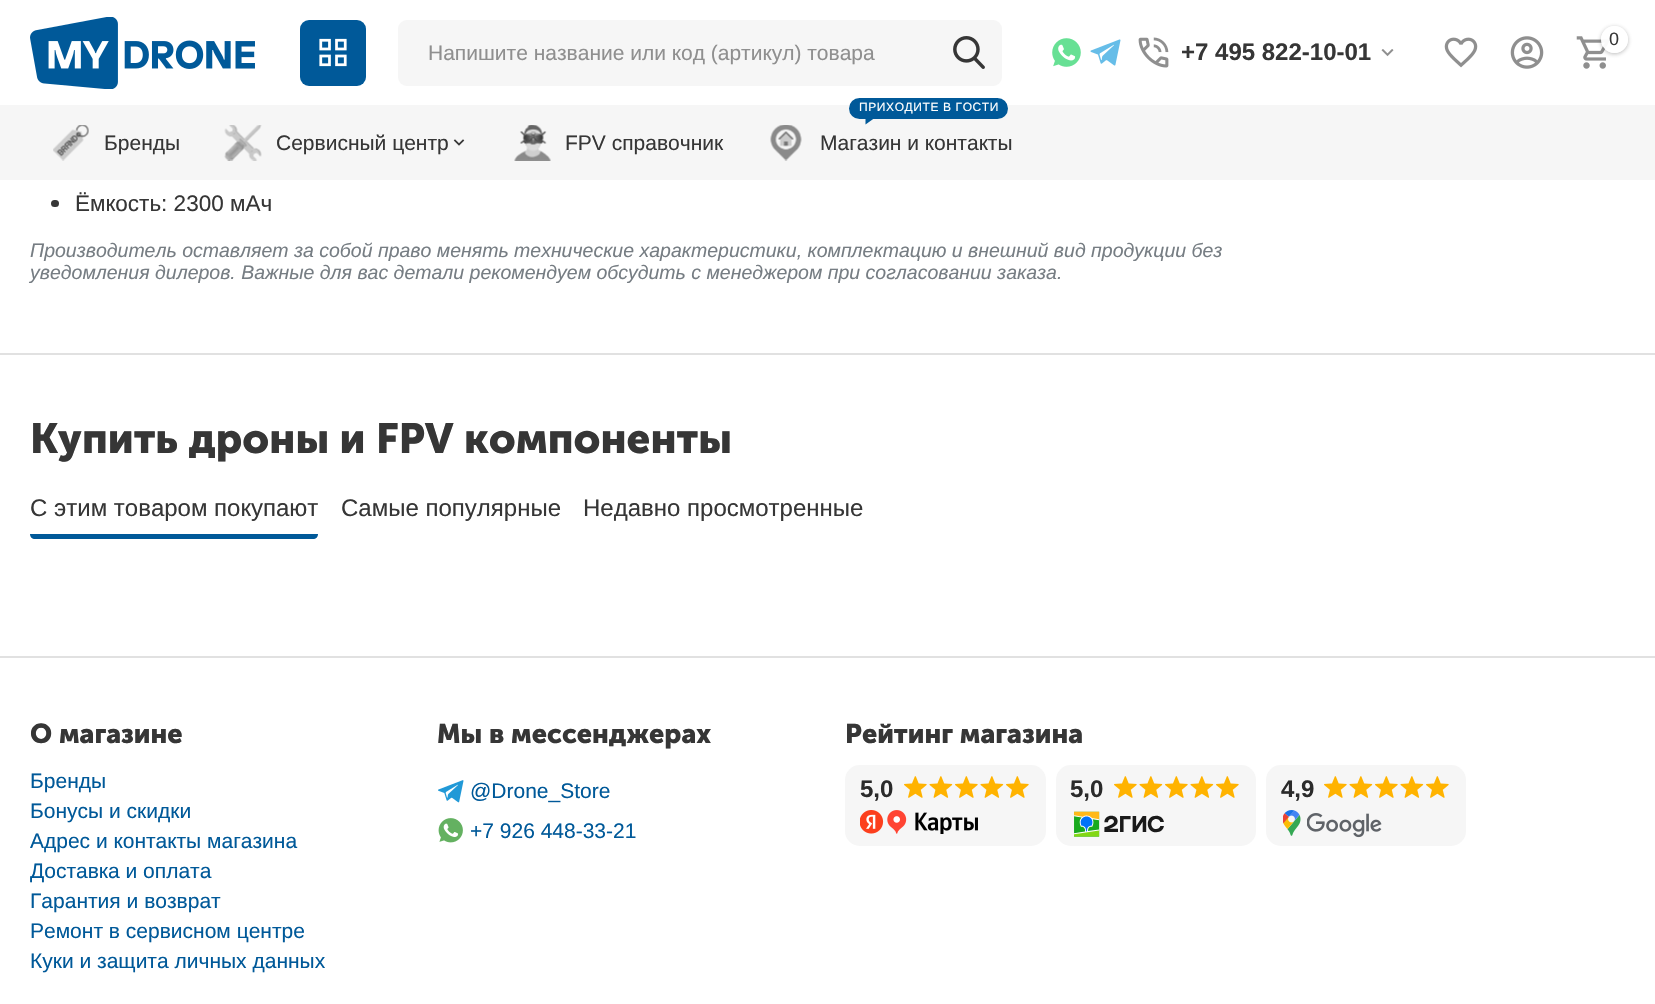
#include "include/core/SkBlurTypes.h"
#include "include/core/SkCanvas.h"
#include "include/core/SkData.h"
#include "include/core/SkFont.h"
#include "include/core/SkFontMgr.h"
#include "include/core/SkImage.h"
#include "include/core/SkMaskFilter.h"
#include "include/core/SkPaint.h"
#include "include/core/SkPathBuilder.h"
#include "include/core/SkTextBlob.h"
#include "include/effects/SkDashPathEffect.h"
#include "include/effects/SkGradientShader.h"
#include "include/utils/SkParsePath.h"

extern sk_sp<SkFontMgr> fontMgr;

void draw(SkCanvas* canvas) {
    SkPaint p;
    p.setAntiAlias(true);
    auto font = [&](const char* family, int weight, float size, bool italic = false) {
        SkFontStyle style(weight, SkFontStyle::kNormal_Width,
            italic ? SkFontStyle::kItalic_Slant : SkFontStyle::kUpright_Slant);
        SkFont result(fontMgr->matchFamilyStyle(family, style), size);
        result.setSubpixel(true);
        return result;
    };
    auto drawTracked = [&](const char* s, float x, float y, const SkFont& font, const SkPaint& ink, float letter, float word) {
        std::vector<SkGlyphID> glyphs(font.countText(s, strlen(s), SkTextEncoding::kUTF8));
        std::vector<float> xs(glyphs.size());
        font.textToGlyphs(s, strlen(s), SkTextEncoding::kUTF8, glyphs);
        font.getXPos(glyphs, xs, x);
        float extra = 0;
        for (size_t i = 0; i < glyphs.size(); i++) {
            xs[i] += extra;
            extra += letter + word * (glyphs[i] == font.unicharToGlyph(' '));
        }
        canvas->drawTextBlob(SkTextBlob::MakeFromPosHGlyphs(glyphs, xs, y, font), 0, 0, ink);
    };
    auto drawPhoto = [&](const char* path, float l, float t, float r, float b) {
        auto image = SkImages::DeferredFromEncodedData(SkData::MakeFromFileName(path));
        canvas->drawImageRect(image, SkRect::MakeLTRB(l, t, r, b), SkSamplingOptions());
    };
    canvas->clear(0xFFFFFFFF);
    drawPhoto("media/1.png", 30, 17, 255, 89);
    p.setColor(0xFF005999);
    canvas->drawRoundRect(SkRect::MakeLTRB(300, 20, 366, 86), 9, 9, p);
    drawPhoto("media/2.png", 319, 38, 347, 67);
    drawPhoto("media/3.png", 1444, 37, 1478, 68);
    drawPhoto("media/4.png", 1510, 36, 1544, 69);
    drawPhoto("media/5.png", 1576, 36, 1610, 69);
    canvas->save();
    canvas->clipPath(SkPathBuilder(SkPathFillType::kEvenOdd).moveTo(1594, 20).lineTo(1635, 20).lineTo(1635, 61).lineTo(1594, 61).close().moveTo(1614.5f, 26).cubicTo(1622, 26, 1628, 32, 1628, 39.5f).cubicTo(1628, 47, 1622, 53, 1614.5f, 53).cubicTo(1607, 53, 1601, 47, 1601, 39.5f).cubicTo(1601, 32, 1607, 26, 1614.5f, 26).close().detach(), true);
    p.setColor(0x59363636);
    p.setMaskFilter(SkMaskFilter::MakeBlur(kNormal_SkBlurStyle, 2));
    canvas->drawRoundRect(SkRect::MakeLTRB(1601, 27, 1628, 54), 13.5f, 13.5f, p);
    p.setMaskFilter(nullptr);
    canvas->restore();
    p.setColor(0xF2FFFFFF);
    canvas->drawCircle(1614.5f, 39.5f, 13.5f, p);
    auto font1 = font("Liberation Sans", 400, 18);
    p.setColor(0xFF363636);
    canvas->drawString("0", 1609, 45, font1, p);
    p.setColor(0xFFF6F6F6);
    canvas->drawRoundRect(SkRect::MakeLTRB(398, 20, 1002, 86), 9, 9, p);
    auto font2 = font("Liberation Sans", 400, 21);
    p.setColor(0xFF8F8F8F);
    canvas->drawString("Напишите название или код (артикул) товара", 428, 60, font2, p);
    drawPhoto("media/6.png", 953, 36, 985, 69);
    drawPhoto("media/7.png", 1052, 38, 1081, 67);
    drawPhoto("media/8.png", 1090, 39, 1121, 66);
    drawPhoto("media/9.png", 1138, 37, 1169, 68);
    auto font3 = font("Liberation Sans", 700, 24);
    p.setColor(0xFF363636);
    canvas->drawString("+7 495 822-10-01", 1181, 60, font3, p);
    drawPhoto("media/10.png", 1381, 49, 1394, 57);
    p.setColor(0xFFF6F6F6);
    canvas->drawRect(SkRect::MakeLTRB(0, 105, 1655, 180), p);
    drawPhoto("media/11.png", 53, 125, 89, 161);
    p.setColor(0xFF363636);
    canvas->drawString("Бренды", 104, 150, font2, p);
    drawPhoto("media/12.png", 224, 125, 262, 161);
    canvas->drawString("Сервисный центр", 276, 150, font2, p);
    drawPhoto("media/13.png", 453, 139, 465, 146);
    drawPhoto("media/14.png", 514, 125, 551, 161);
    canvas->drawString("FPV справочник", 565, 150, font2, p);
    drawPhoto("media/15.png", 770, 125, 802, 161);
    p.setColor(0xFF005999);
    canvas->drawRoundRect(SkRect::MakeLTRB(850, 99, 1007, 118), 9.5f, 9.5f, p);
    p.setStyle(SkPaint::kStroke_Style);
    p.setStrokeWidth(2);
    canvas->drawRoundRect(SkRect::MakeLTRB(850, 99, 1007, 118), 9.5f, 9.5f, p);
    auto font4 = font("Liberation Sans", 400, 12);
    p.setStyle(SkPaint::kFill_Style);
    p.setColor(0xFFFFFFFF);
    drawTracked("ПРИХОДИТЕ В ГОСТИ", 859, 111, font4, p, 0.6f, 0);
    p.setColor(0xFF005999);
    canvas->drawPath(SkPathBuilder().moveTo(865.5f, 117).lineTo(876, 117).lineTo(865.5f, 124.5f).close().detach(), p);
    p.setColor(0xFF363636);
    canvas->drawString("Магазин и контакты", 820, 150, font2, p);
    canvas->drawRoundRect(SkRect::MakeLTRB(51, 200, 59, 207), 3.5f, 3.5f, p);
    auto font5 = font("Liberation Sans", 400, 22.5f);
    canvas->drawString("Ёмкость: 2300 мАч", 75, 211, font5, p);
    auto font6 = font("Liberation Sans", 400, 19.5f, true);
    p.setColor(0xFF767D83);
    canvas->drawString("Производитель оставляет за собой право менять технические характеристики, комплектацию и внешний вид продукции без", 30, 257, font6, p);
    canvas->drawString("уведомления дилеров. Важные для вас детали рекомендуем обсудить с менеджером при согласовании заказа.", 30, 279, font6, p);
    p.setColor(0xFFE1E1E1);
    canvas->drawRect(SkRect::MakeLTRB(0, 353, 1655, 355), p);
    auto font7 = font("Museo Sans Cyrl", 700, 42);
    p.setColor(0xFF363636);
    canvas->drawString("Купить дроны и FPV компоненты", 30, 453, font7, p);
    auto font8 = font("Liberation Sans", 400, 24);
    canvas->drawString("С этим товаром покупают", 30, 516, font8, p);
    p.setColor(0xFF005999);
    canvas->drawPath(SkPathBuilder().moveTo(30, 534).lineTo(318, 534).cubicTo(318, 537, 316, 539, 313, 539).lineTo(35, 539).cubicTo(32, 539, 30, 537, 30, 534).close().detach(), p);
    p.setColor(0xFF363636);
    canvas->drawString("Самые популярные", 341, 516, font8, p);
    canvas->drawString("Недавно просмотренные", 583, 516, font8, p);
    p.setColor(0xFFE1E1E1);
    canvas->drawRect(SkRect::MakeLTRB(0, 656, 1655, 658), p);
    auto font9 = font("Museo Sans Cyrl", 700, 27);
    p.setColor(0xFF363636);
    canvas->drawString("О магазине", 30, 743, font9, p);
    p.setColor(0xFF005999);
    {
        const struct { const char* s; float x, y; } items[] = {
            {"Бренды", 30, 788},
            {"Бонусы и скидки", 30, 818},
            {"Адрес и контакты магазина", 30, 848},
            {"Доставка и оплата", 30, 878},
            {"Гарантия и возврат", 30, 908},
            {"Ремонт в сервисном центре", 30, 938},
            {"Куки и защита личных данных", 30, 968},
        };
        for (auto [s, x, y] : items) {
            canvas->drawString(s, x, y, font2, p);
        }
    }
    p.setColor(0xFF363636);
    canvas->drawString("Мы в мессенджерах", 437, 743, font9, p);
    drawPhoto("media/16.png", 438, 780, 464, 803);
    p.setColor(0xFF005999);
    canvas->drawString("@Drone_Store", 470, 798, font2, p);
    drawPhoto("media/17.png", 438, 818, 463, 843);
    canvas->drawString("+7 926 448-33-21", 470, 838, font2, p);
    p.setColor(0xFF363636);
    canvas->drawString("Рейтинг магазина", 845, 743, font9, p);
    p.setColor(0xFFF6F6F6);
    canvas->drawRoundRect(SkRect::MakeLTRB(845, 765, 1046, 846), 15, 15, p);
    p.setColor(0xFF2B2B2B);
    canvas->drawString("5,0", 860, 797, font3, p);
    drawPhoto("media/18.png", 904, 776, 927, 798);
    drawPhoto("media/19.png", 929, 776, 953, 798);
    drawPhoto("media/18.png", 955, 776, 978, 798);
    drawPhoto("media/19.png", 980, 776, 1004, 798);
    drawPhoto("media/18.png", 1006, 776, 1029, 798);
    drawPhoto("media/20.png", 860, 810, 978, 834);
    p.setColor(0xFFF6F6F6);
    canvas->drawRoundRect(SkRect::MakeLTRB(1056, 765, 1256, 846), 15, 15, p);
    p.setColor(0xFF2B2B2B);
    canvas->drawString("5,0", 1070, 797, font3, p);
    drawPhoto("media/18.png", 1114, 776, 1137, 798);
    drawPhoto("media/19.png", 1139, 776, 1163, 798);
    drawPhoto("media/18.png", 1165, 776, 1188, 798);
    drawPhoto("media/19.png", 1190, 776, 1214, 798);
    drawPhoto("media/18.png", 1216, 776, 1239, 798);
    drawPhoto("media/21.png", 1074, 811, 1164, 837);
    p.setColor(0xFFF6F6F6);
    canvas->drawRoundRect(SkRect::MakeLTRB(1266, 765, 1466, 846), 15, 15, p);
    p.setColor(0xFF2B2B2B);
    canvas->drawString("4,9", 1281, 797, font3, p);
    drawPhoto("media/18.png", 1324, 776, 1347, 798);
    drawPhoto("media/19.png", 1349, 776, 1373, 798);
    drawPhoto("media/18.png", 1375, 776, 1398, 798);
    drawPhoto("media/19.png", 1400, 776, 1424, 798);
    drawPhoto("media/18.png", 1426, 776, 1449, 798);
    drawPhoto("media/22.png", 1283, 810, 1301, 836);
    drawPhoto("media/23.png", 1307, 813, 1382, 838);
}
